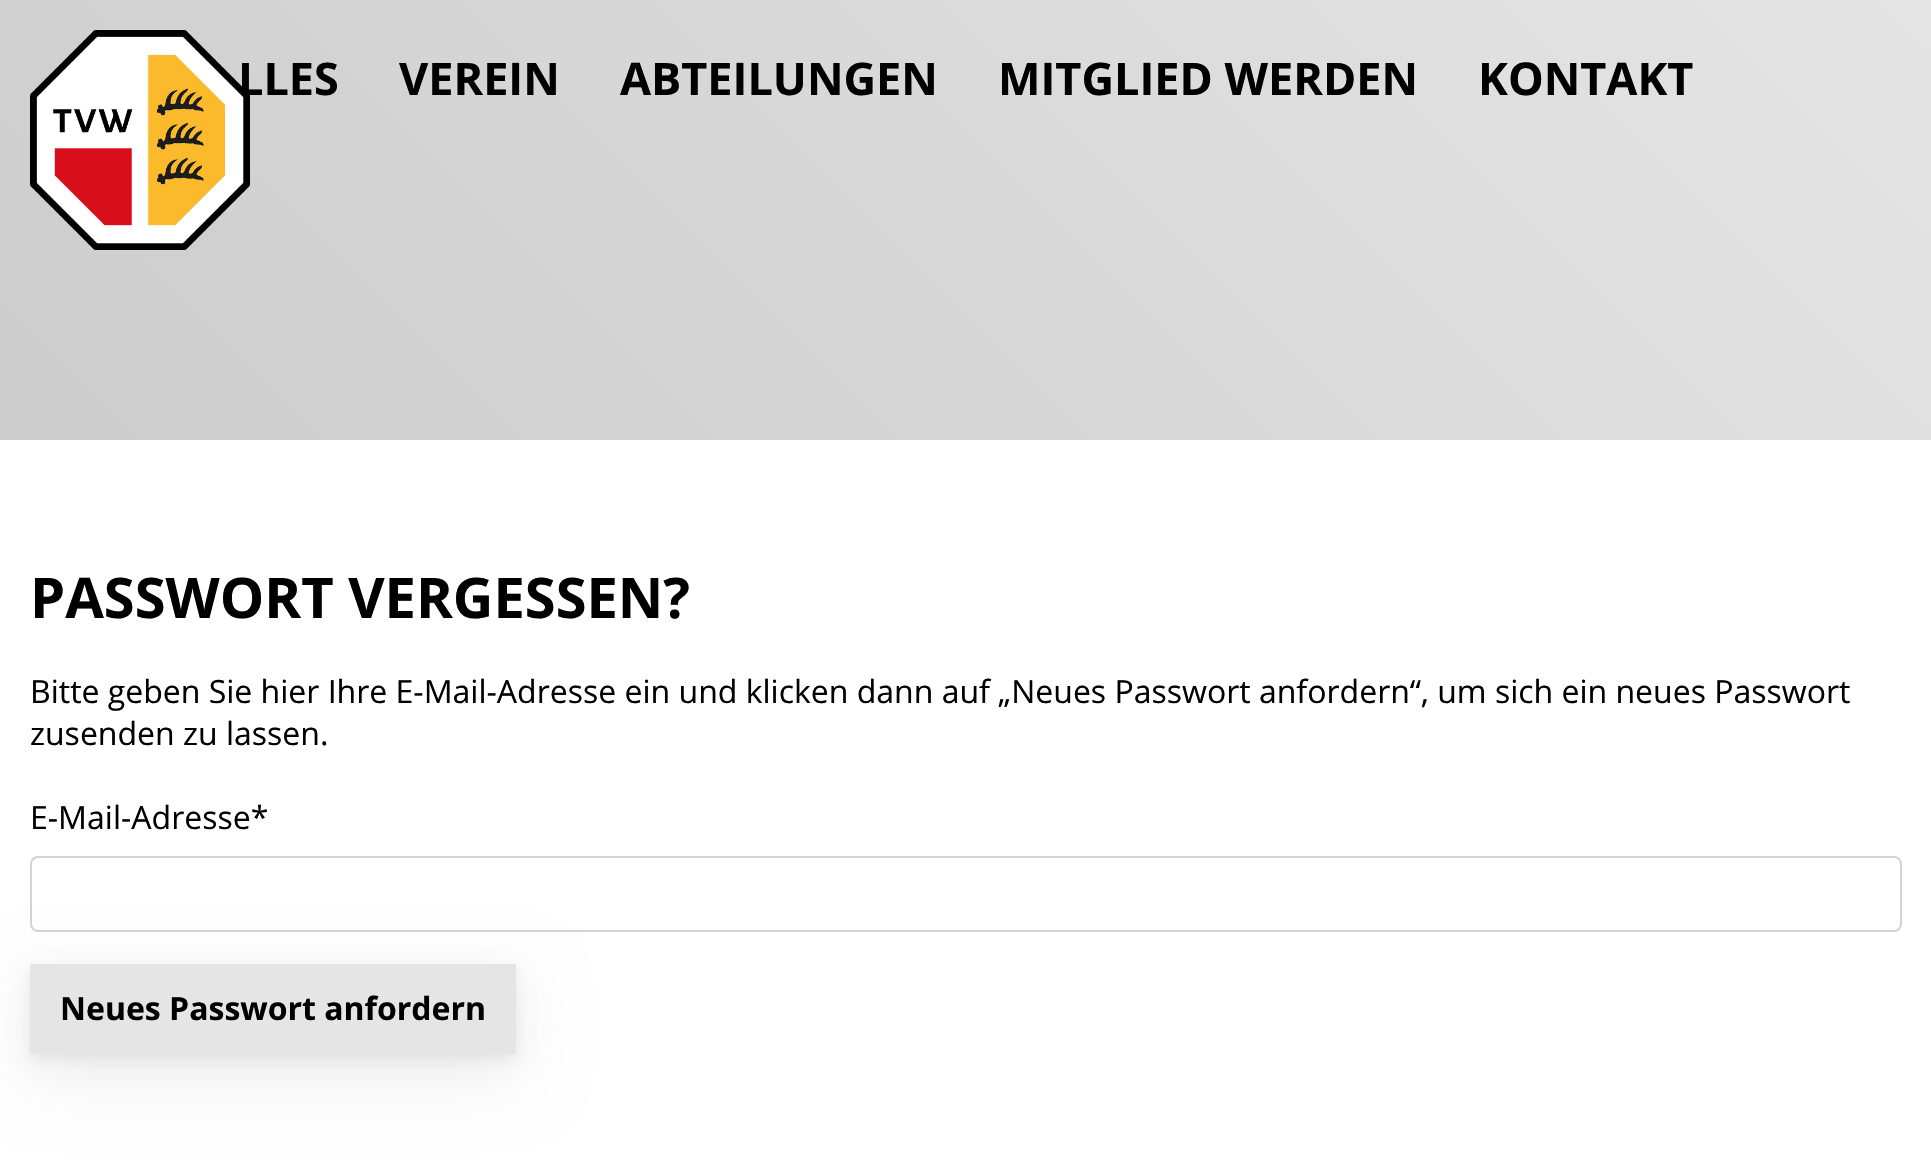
#include "include/core/SkBlurTypes.h"
#include "include/core/SkCanvas.h"
#include "include/core/SkData.h"
#include "include/core/SkFont.h"
#include "include/core/SkFontMgr.h"
#include "include/core/SkImage.h"
#include "include/core/SkMaskFilter.h"
#include "include/core/SkPaint.h"
#include "include/core/SkPathBuilder.h"
#include "include/core/SkTextBlob.h"
#include "include/effects/SkDashPathEffect.h"
#include "include/effects/SkGradientShader.h"
#include "include/utils/SkParsePath.h"

extern sk_sp<SkFontMgr> fontMgr;

void draw(SkCanvas* canvas) {
    SkPaint p;
    p.setAntiAlias(true);
    auto font = [&](const char* family, int weight, float size, bool italic = false) {
        SkFontStyle style(weight, SkFontStyle::kNormal_Width,
            italic ? SkFontStyle::kItalic_Slant : SkFontStyle::kUpright_Slant);
        SkFont result(fontMgr->matchFamilyStyle(family, style), size);
        result.setSubpixel(true);
        return result;
    };
    auto drawPhoto = [&](const char* path, float l, float t, float r, float b) {
        auto image = SkImages::DeferredFromEncodedData(SkData::MakeFromFileName(path));
        canvas->drawImageRect(image, SkRect::MakeLTRB(l, t, r, b), SkSamplingOptions());
    };
    canvas->clear(0xFFFFFFFF);
    {
        const SkColor colors[] = {0xFFCCCCCC, 0xFFE5E5E5};
        const float stops[] = {0, 1};
        const SkPoint ends[] = {{373, 813}, {1559, -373}};
        p.setShader(SkGradientShader::MakeLinear(ends, colors, stops, 2, SkTileMode::kClamp));
        p.setAlpha(255);
    }
    canvas->drawRect(SkRect::MakeLTRB(0, 0, 1931, 440), p);
    auto font1 = font("Open Sans", 700, 45);
    p.setShader(nullptr);
    p.setColor(0xFF000000);
    canvas->drawString("LLES", 238, 95, font1, p);
    drawPhoto("media/1.png", 30, 30, 250, 250);
    {
        const struct { const char* s; float x, y; } items[] = {
            {"VEREIN", 399, 95},
            {"ABTEILUNGEN", 620, 95},
            {"MITGLIED WERDEN", 998, 95},
            {"KONTAKT", 1478, 95},
        };
        for (auto [s, x, y] : items) {
            canvas->drawString(s, x, y, font1, p);
        }
    }
    auto font2 = font("Open Sans", 700, 56);
    canvas->drawString("PASSWORT VERGESSEN?", 30, 618, font2, p);
    auto font3 = font("Open Sans", 400, 32);
    {
        const struct { const char* s; float x, y; } items[] = {
            {"Bitte geben Sie hier Ihre E-Mail-Adresse ein und klicken dann auf „Neues Passwort anfordern“, um sich ein neues Passwort", 30, 703},
            {"zusenden zu lassen.", 30, 745},
            {"E-Mail-Adresse*", 30, 829},
        };
        for (auto [s, x, y] : items) {
            canvas->drawString(s, x, y, font3, p);
        }
    }
    p.setStyle(SkPaint::kStroke_Style);
    p.setStrokeWidth(2);
    p.setColor(0xFFCED4DA);
    canvas->drawRoundRect(SkRect::MakeLTRB(31, 857, 1901, 931), 7, 7, p);
    p.setStyle(SkPaint::kFill_Style);
    p.setColor(0x12000000);
    p.setMaskFilter(SkMaskFilter::MakeBlur(kNormal_SkBlurStyle, 35));
    canvas->drawRect(SkRect::MakeLTRB(30, 984, 516, 1074), p);
    p.setMaskFilter(nullptr);
    p.setMaskFilter(SkMaskFilter::MakeBlur(kNormal_SkBlurStyle, 7));
    canvas->drawRect(SkRect::MakeLTRB(30, 970, 516, 1060), p);
    p.setMaskFilter(nullptr);
    p.setColor(0xFFE5E5E5);
    canvas->drawRect(SkRect::MakeLTRB(30, 964, 516, 1054), p);
    auto font4 = font("Open Sans", 700, 32);
    p.setColor(0xFF000000);
    canvas->drawString("Neues Passwort anfordern", 60, 1020, font4, p);
}
